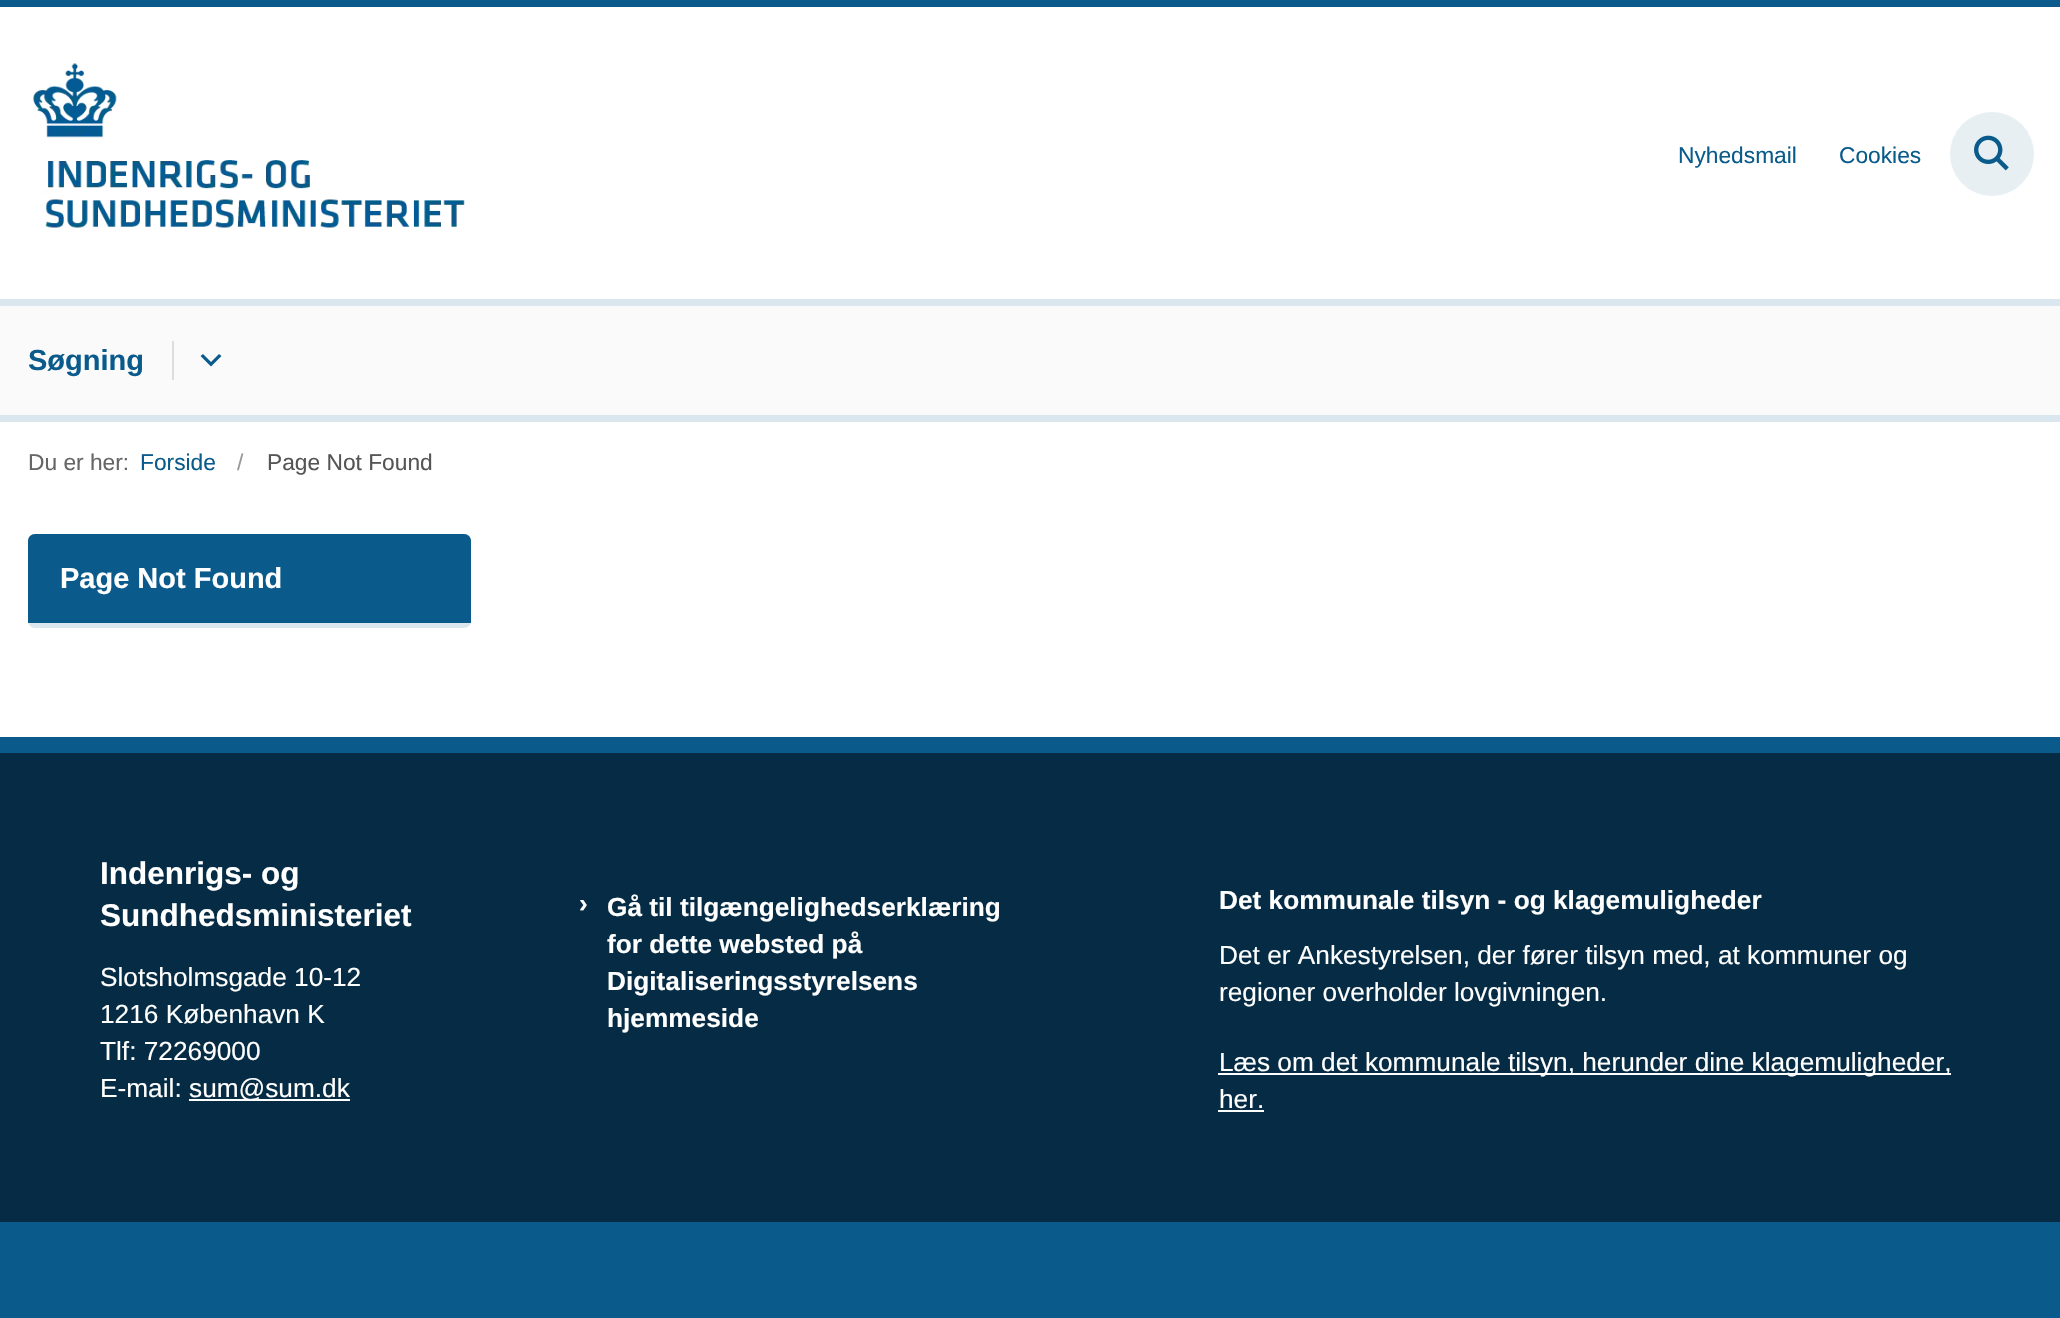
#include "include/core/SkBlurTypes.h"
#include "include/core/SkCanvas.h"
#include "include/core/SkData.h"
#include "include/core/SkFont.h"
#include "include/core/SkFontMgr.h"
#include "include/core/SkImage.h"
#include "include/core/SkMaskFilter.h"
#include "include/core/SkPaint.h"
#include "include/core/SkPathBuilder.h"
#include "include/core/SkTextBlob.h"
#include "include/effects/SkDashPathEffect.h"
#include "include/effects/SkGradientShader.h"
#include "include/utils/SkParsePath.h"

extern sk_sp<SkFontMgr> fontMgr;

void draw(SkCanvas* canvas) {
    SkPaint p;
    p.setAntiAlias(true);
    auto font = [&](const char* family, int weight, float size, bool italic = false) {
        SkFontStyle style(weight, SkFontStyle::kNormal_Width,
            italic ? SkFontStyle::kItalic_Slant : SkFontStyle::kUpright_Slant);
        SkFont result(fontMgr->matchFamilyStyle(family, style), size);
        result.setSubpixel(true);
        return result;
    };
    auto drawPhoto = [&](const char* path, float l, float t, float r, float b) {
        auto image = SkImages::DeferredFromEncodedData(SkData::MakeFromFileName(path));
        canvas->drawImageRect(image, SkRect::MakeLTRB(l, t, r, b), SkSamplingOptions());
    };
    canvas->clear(0xFF0A5B8B);
    p.setColor(0xFFFFFFFF);
    canvas->drawRect(SkRect::MakeLTRB(0, 7, 2060, 737), p);
    drawPhoto("media/1.png", 33, 63, 465, 228);
    auto font1 = font("Liberation Sans", 400, 22.75f);
    p.setColor(0xFF0A5B8B);
    canvas->drawString("Nyhedsmail", 1678, 163, font1, p);
    canvas->drawString("Cookies", 1839, 163, font1, p);
    p.setColor(0xFFE7EFF3);
    canvas->drawCircle(1992, 154, 42, p);
    drawPhoto("media/2.png", 1974, 135, 2009, 171);
    p.setColor(0xFFFAFAFA);
    canvas->drawRect(SkRect::MakeLTRB(0, 306, 2060, 415), p);
    p.setColor(0xFFDBE7EE);
    canvas->drawRect(SkRect::MakeLTRB(0, 299, 2060, 306), p);
    auto font2 = font("Liberation Sans", 700, 29);
    p.setColor(0xFF0A5B8B);
    canvas->drawString("Søgning", 28, 370, font2, p);
    p.setColor(0xFFDDDDDD);
    canvas->drawRect(SkRect::MakeLTRB(172, 341, 174, 380), p);
    p.setColor(0xFF0A5B8B);
    canvas->drawPath(SkPathBuilder().moveTo(211, 366.5f).lineTo(221.5f, 356).lineTo(219, 354).lineTo(211, 362).lineTo(203, 354).lineTo(200.5f, 356).close().detach(), p);
    p.setColor(0xFFDBE7EE);
    canvas->drawRect(SkRect::MakeLTRB(0, 415, 2060, 422), p);
    p.setColor(0xFF666666);
    canvas->drawString("Du er her:", 28, 470, font1, p);
    p.setColor(0xFF0A5B8B);
    canvas->drawString("Forside", 140, 470, font1, p);
    p.setColor(0xFF999999);
    canvas->drawString("/", 237, 470, font1, p);
    p.setColor(0xFF555555);
    canvas->drawString("Page Not Found", 267, 470, font1, p);
    p.setStyle(SkPaint::kStroke_Style);
    p.setStrokeWidth(5);
    p.setColor(0xFFDBE7EE);
    canvas->drawRoundRect(SkRect::MakeLTRB(30.5f, 536.5f, 468.5f, 625.5f), 4.5f, 4.5f, p);
    p.setStyle(SkPaint::kFill_Style);
    p.setColor(0xFF0A5B8B);
    canvas->drawPath(SkPathBuilder().moveTo(35, 534).lineTo(464, 534).cubicTo(468, 534, 471, 537, 471, 541).lineTo(471, 623).lineTo(28, 623).lineTo(28, 541).cubicTo(28, 537, 31, 534, 35, 534).close().detach(), p);
    p.setColor(0xFFFFFFFF);
    canvas->drawString("Page Not Found", 60, 588, font2, p);
    p.setColor(0xFF052C44);
    canvas->drawRect(SkRect::MakeLTRB(0, 753, 2060, 1222), p);
    auto font3 = font("Liberation Sans", 700, 31.5f);
    p.setColor(0xFFFFFFFF);
    canvas->drawString("Indenrigs- og", 100, 884, font3, p);
    canvas->drawString("Sundhedsministeriet", 100, 926, font3, p);
    auto font4 = font("Liberation Sans", 400, 26.25f);
    {
        const struct { const char* s; float x, y; } items[] = {
            {"Slotsholmsgade 10-12", 100, 986},
            {"1216 København K", 100, 1023},
            {"Tlf: 72269000", 100, 1060},
            {"E-mail:", 100, 1097},
        };
        for (auto [s, x, y] : items) {
            canvas->drawString(s, x, y, font4, p);
        }
    }
    canvas->drawRect(SkRect::MakeLTRB(189, 1099, 350, 1101), p);
    canvas->drawString("sum@sum.dk", 189, 1097, font4, p);
    auto font5 = font("Liberation Sans", 700, 26.25f);
    {
        const struct { const char* s; float x, y; } items[] = {
            {"›", 579, 912},
            {"Gå til tilgængelighedserklæring", 607, 916},
            {"for dette websted på", 607, 953},
            {"Digitaliseringsstyrelsens", 607, 990},
            {"hjemmeside", 607, 1027},
            {"Det kommunale tilsyn - og klagemuligheder", 1219, 909},
        };
        for (auto [s, x, y] : items) {
            canvas->drawString(s, x, y, font5, p);
        }
    }
    canvas->drawString("Det er Ankestyrelsen, der fører tilsyn med, at kommuner og", 1219, 964, font4, p);
    canvas->drawString("regioner overholder lovgivningen.", 1219, 1001, font4, p);
    canvas->drawRect(SkRect::MakeLTRB(1218, 1073, 1951, 1075), p);
    canvas->drawString("Læs om det kommunale tilsyn, herunder dine klagemuligheder,", 1219, 1071, font4, p);
    canvas->drawString("her.", 1219, 1108, font4, p);
    canvas->drawRect(SkRect::MakeLTRB(1218, 1110, 1264, 1112), p);
}
